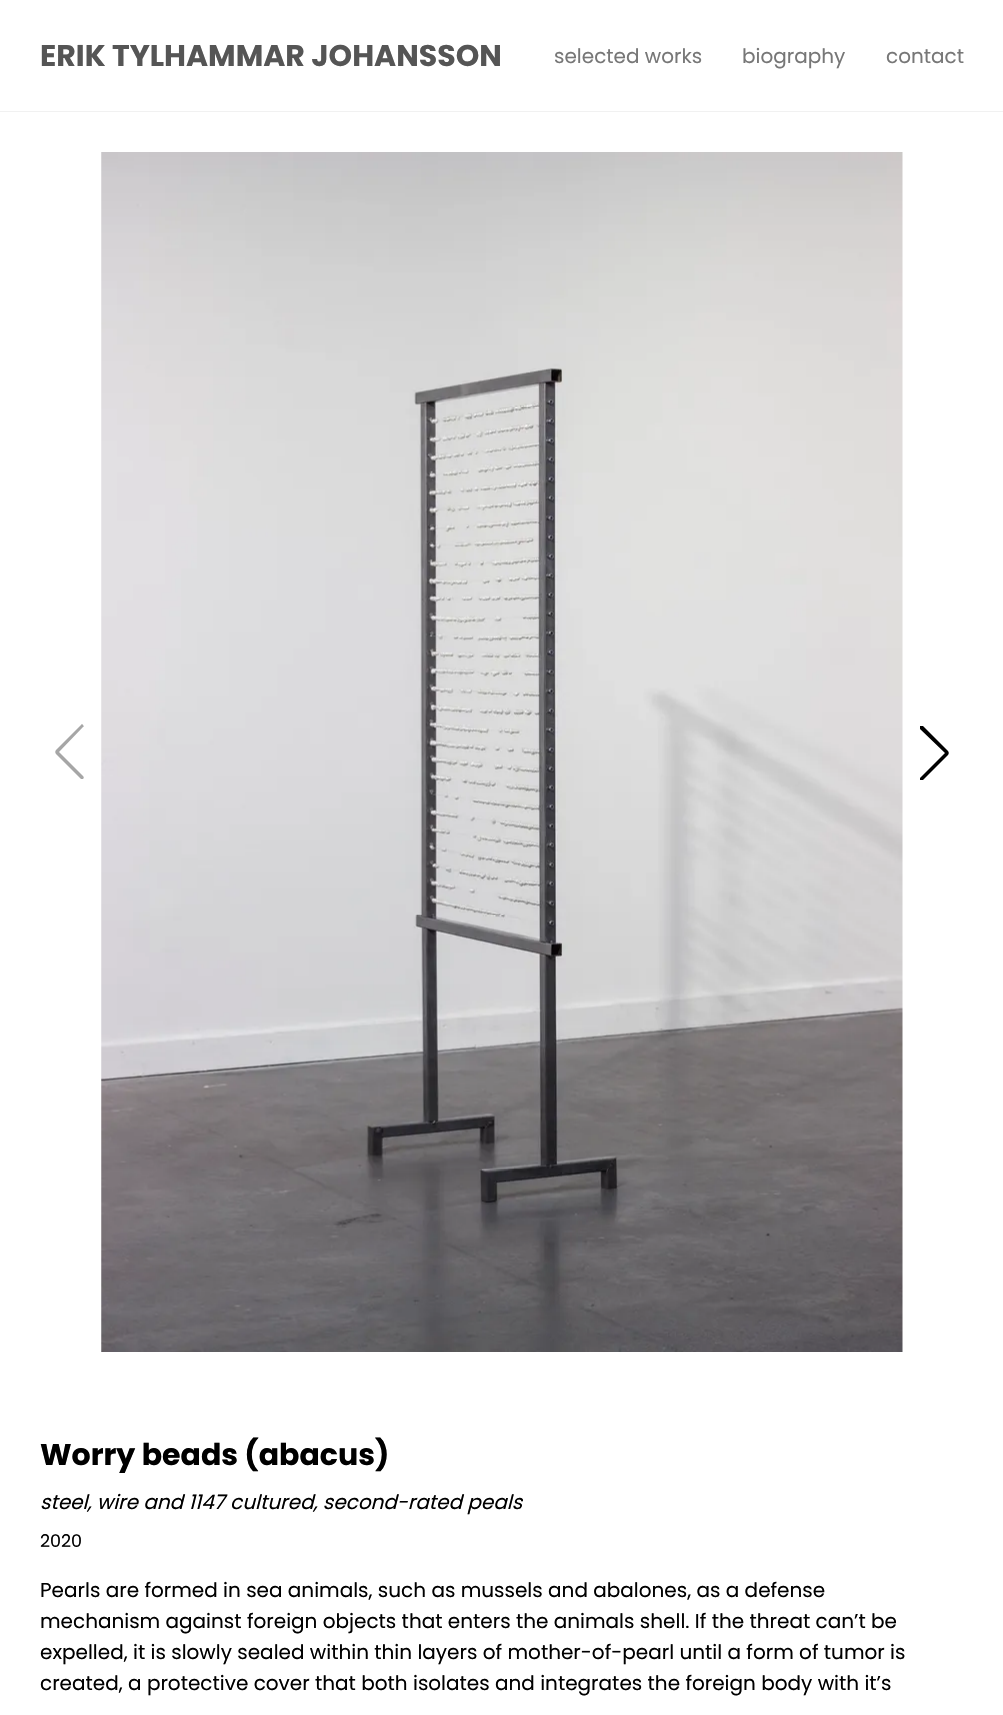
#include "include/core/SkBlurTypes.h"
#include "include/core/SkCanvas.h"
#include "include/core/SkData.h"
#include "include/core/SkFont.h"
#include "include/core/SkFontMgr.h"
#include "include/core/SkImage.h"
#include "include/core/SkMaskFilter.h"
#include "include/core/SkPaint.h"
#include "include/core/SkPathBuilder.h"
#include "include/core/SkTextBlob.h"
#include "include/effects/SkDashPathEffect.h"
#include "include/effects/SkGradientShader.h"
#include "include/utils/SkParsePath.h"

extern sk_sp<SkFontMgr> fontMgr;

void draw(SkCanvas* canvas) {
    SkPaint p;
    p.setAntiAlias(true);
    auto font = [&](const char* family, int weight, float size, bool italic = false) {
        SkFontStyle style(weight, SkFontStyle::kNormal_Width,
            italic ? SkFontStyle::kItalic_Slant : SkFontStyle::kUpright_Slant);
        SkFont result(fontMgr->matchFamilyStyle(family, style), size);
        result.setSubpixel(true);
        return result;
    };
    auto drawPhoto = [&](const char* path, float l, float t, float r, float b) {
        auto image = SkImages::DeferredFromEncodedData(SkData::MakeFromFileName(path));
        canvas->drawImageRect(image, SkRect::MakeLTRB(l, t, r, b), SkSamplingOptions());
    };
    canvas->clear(0xFFFFFFFF);
    p.setColor(0xFFF1F1F1);
    canvas->drawRect(SkRect::MakeLTRB(0, 111, 1003, 112), p);
    auto font1 = font("Poppins", 700, 30);
    p.setColor(0xFF555555);
    canvas->drawString("ERIK TYLHAMMAR JOHANSSON", 40, 66, font1, p);
    auto font2 = font("Poppins", 400, 20);
    p.setColor(0xFF777777);
    {
        const struct { const char* s; float x, y; } items[] = {
            {"selected works", 554, 63},
            {"biography", 742, 63},
            {"contact", 886, 63},
        };
        for (auto [s, x, y] : items) {
            canvas->drawString(s, x, y, font2, p);
        }
    }
    p.setColor(0xFFA6A6A6);
    canvas->drawPath(SkPathBuilder().moveTo(83, 725).cubicTo(84, 726, 84, 727, 83, 727).lineTo(59, 752).lineTo(83, 776).cubicTo(84, 777, 84, 778, 83, 779).cubicTo(83, 779, 81, 779, 81, 779).lineTo(56, 754).cubicTo(55, 753, 55, 751, 56, 750).lineTo(81, 725).cubicTo(81, 724, 83, 724, 83, 725).close().detach(), p);
    drawPhoto("media/1.png", 101, 152, 903, 1352);
    canvas->save();
    canvas->clipRect(SkRect::MakeLTRB(918, 725, 951, 780));
    p.setColor(0xFF000000);
    canvas->drawPath(SkPathBuilder().moveTo(920, 780).cubicTo(920, 779, 920, 778, 920, 778).lineTo(945, 753).lineTo(920, 729).cubicTo(920, 728, 920, 727, 920, 726).cubicTo(921, 726, 922, 726, 923, 726).lineTo(948, 751).cubicTo(949, 752, 949, 754, 948, 755).lineTo(923, 780).cubicTo(922, 781, 921, 781, 920, 780).close().detach(), p);
    canvas->restore();
    canvas->drawString("Worry beads (abacus)", 40, 1465, font1, p);
    auto font3 = font("Poppins", 400, 20, true);
    canvas->drawString("steel, wire and 1147 cultured, second-rated peals", 40, 1509, font3, p);
    auto font4 = font("Poppins", 400, 17.5f);
    canvas->drawString("2020", 40, 1547, font4, p);
    {
        const struct { const char* s; float x, y; } items[] = {
            {"Pearls are formed in sea animals, such as mussels and abalones, as a defense", 40, 1597},
            {"mechanism against foreign objects that enters the animals shell. If the threat can’t be", 40, 1628},
            {"expelled, it is slowly sealed within thin layers of mother-of-pearl until a form of tumor is", 40, 1659},
            {"created, a protective cover that both isolates and integrates the foreign body with it’s", 40, 1690},
        };
        for (auto [s, x, y] : items) {
            canvas->drawString(s, x, y, font2, p);
        }
    }
}
